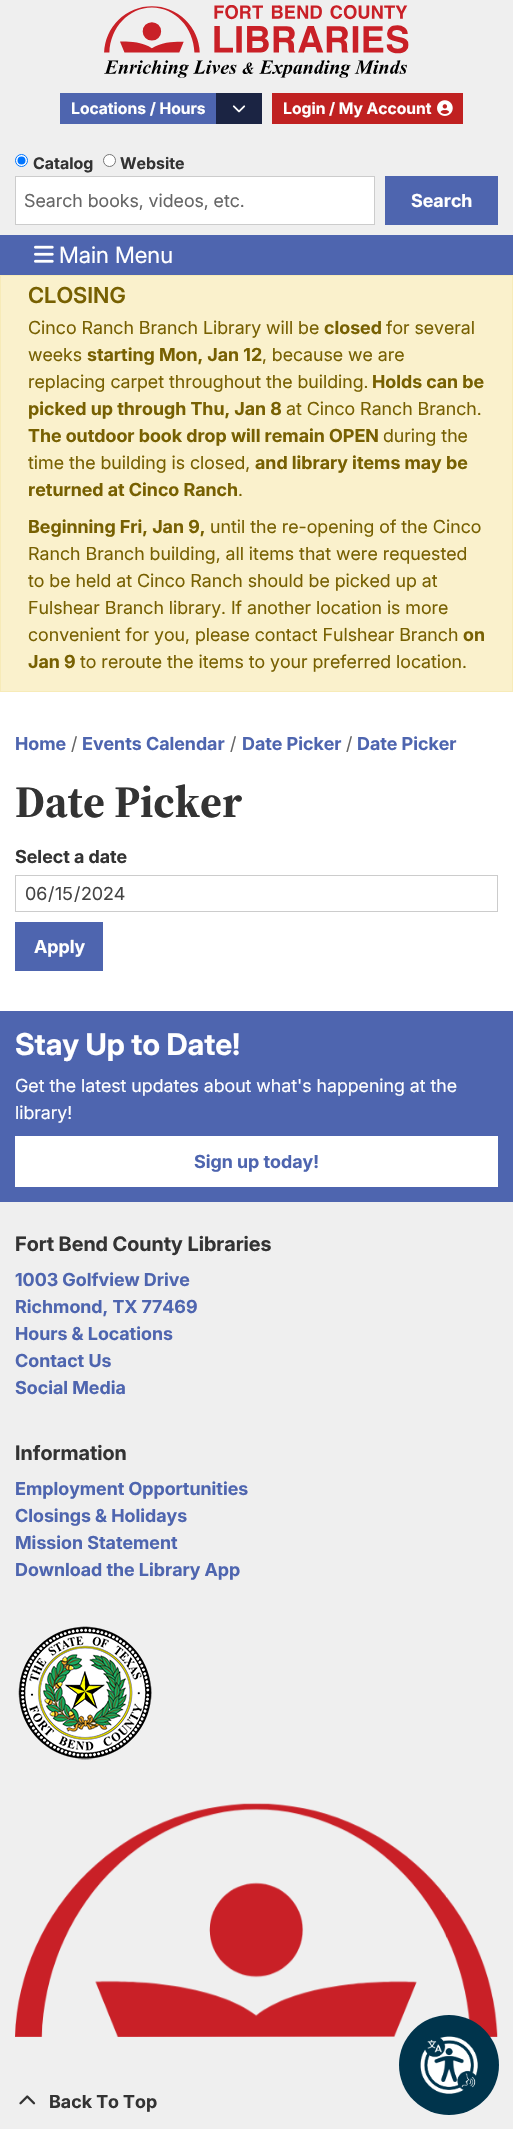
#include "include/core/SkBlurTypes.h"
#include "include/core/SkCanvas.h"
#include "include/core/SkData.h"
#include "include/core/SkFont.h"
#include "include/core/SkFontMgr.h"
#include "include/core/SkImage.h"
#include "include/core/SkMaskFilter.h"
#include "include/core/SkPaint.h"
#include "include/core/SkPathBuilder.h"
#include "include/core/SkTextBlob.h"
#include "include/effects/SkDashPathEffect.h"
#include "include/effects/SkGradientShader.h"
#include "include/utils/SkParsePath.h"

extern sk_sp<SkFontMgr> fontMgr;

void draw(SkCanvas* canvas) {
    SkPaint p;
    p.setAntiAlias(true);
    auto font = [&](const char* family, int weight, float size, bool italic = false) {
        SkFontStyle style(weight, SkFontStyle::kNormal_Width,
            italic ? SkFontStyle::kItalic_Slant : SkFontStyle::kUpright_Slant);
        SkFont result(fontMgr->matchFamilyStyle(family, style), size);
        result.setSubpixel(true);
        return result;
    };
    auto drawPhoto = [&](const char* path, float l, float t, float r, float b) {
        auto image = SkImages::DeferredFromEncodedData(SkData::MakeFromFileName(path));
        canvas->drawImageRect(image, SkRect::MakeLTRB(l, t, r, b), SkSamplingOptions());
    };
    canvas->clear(0xFFEFEFEF);
    drawPhoto("media/1.png", 104, 5, 409, 78);
    p.setColor(0xFF4E65AF);
    canvas->drawRect(SkRect::MakeLTRB(60, 93, 216, 124), p);
    auto font1 = font("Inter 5", 700, 15.75f);
    p.setColor(0xFFFFFFFF);
    canvas->drawString("Locations / Hours", 71, 114, font1, p);
    p.setColor(0xFF1B2443);
    canvas->drawRect(SkRect::MakeLTRB(216, 93, 262, 124), p);
    drawPhoto("media/2.png", 232, 105, 246, 113);
    p.setColor(0xFFC02121);
    canvas->drawRect(SkRect::MakeLTRB(272, 93, 463, 124), p);
    p.setColor(0xFFFFFFFF);
    canvas->drawString("Login / My Account", 283, 114, font1, p);
    drawPhoto("media/3.png", 437, 100, 453, 116);
    canvas->drawCircle(21.5f, 160.5f, 6, p);
    p.setStyle(SkPaint::kStroke_Style);
    p.setStrokeWidth(1);
    p.setColor(0xFF0075FF);
    canvas->drawCircle(21.5f, 160.5f, 6, p);
    p.setStyle(SkPaint::kFill_Style);
    canvas->drawCircle(21.5f, 160.5f, 4, p);
    auto font2 = font("Inter", 700, 16);
    p.setColor(0xFF333333);
    canvas->drawString("Catalog", 33, 169, font2, p);
    p.setColor(0xFFFFFFFF);
    canvas->drawCircle(109.5f, 160.5f, 6, p);
    p.setStyle(SkPaint::kStroke_Style);
    p.setColor(0xFF767676);
    canvas->drawCircle(109.5f, 160.5f, 6, p);
    p.setStyle(SkPaint::kFill_Style);
    p.setColor(0xFF333333);
    canvas->drawString("Website", 120, 169, font2, p);
    p.setColor(0xFFFFFFFF);
    canvas->drawRect(SkRect::MakeLTRB(15.5f, 176.5f, 374.5f, 224.5f), p);
    p.setStyle(SkPaint::kStroke_Style);
    p.setColor(0xFFCCCCCC);
    canvas->drawRect(SkRect::MakeLTRB(15.5f, 176.5f, 374.5f, 224.5f), p);
    auto font3 = font("Inter", 400, 18);
    p.setStyle(SkPaint::kFill_Style);
    p.setColor(0xFF666666);
    canvas->drawString("Search books, videos, etc.", 24, 207, font3, p);
    p.setColor(0xFF4E65AF);
    canvas->drawRect(SkRect::MakeLTRB(385, 176, 498, 225), p);
    auto font4 = font("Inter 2", 700, 18);
    p.setColor(0xFFFFFFFF);
    canvas->drawString("Search", 411, 207, font4, p);
    p.setColor(0xFF4E65AF);
    canvas->drawRect(SkRect::MakeLTRB(0, 235, 513, 275), p);
    drawPhoto("media/4.png", 34, 245, 54, 263);
    auto font5 = font("Inter 2", 400, 22.5f);
    p.setColor(0xFFFFFFFF);
    canvas->drawString("Main Menu", 59, 263, font5, p);
    canvas->drawRect(SkRect::MakeLTRB(0, 692, 513, 1011), p);
    p.setColor(0xFFFAF1CC);
    canvas->drawRect(SkRect::MakeLTRB(0.5f, 275.5f, 512.5f, 691.5f), p);
    p.setStyle(SkPaint::kStroke_Style);
    p.setColor(0xFFF7EBB8);
    canvas->drawRect(SkRect::MakeLTRB(0.5f, 275.5f, 512.5f, 691.5f), p);
    auto font6 = font("Inter", 600, 22);
    p.setStyle(SkPaint::kFill_Style);
    p.setColor(0xFF776001);
    canvas->drawString("CLOSING", 28, 303, font6, p);
    canvas->drawString("Cinco Ranch Branch Library will be", 28, 334, font3, p);
    canvas->drawString("closed", 324, 334, font4, p);
    canvas->drawString("for several", 386, 334, font3, p);
    canvas->drawString("weeks", 28, 361, font3, p);
    canvas->drawString("starting Mon, Jan 12", 87, 361, font4, p);
    canvas->drawString(", because we are", 262, 361, font3, p);
    canvas->drawString("replacing carpet throughout the building.", 28, 388, font3, p);
    canvas->drawString("Holds can be", 372, 388, font4, p);
    canvas->drawString("picked up through Thu, Jan 8", 28, 415, font4, p);
    canvas->drawString("at Cinco Ranch Branch.", 286, 415, font3, p);
    canvas->drawString("The outdoor book drop will remain OPEN", 28, 442, font4, p);
    canvas->drawString("during the", 383, 442, font3, p);
    canvas->drawString("time the building is closed,", 28, 469, font3, p);
    canvas->drawString("and library items may be", 255, 469, font4, p);
    canvas->drawString("returned at Cinco Ranch", 28, 496, font4, p);
    canvas->drawString(".", 238, 496, font3, p);
    canvas->drawString("Beginning Fri, Jan 9,", 28, 533, font4, p);
    {
        const struct { const char* s; float x, y; } items[] = {
            {"until the re-opening of the Cinco", 210, 533},
            {"Ranch Branch building, all items that were requested", 28, 560},
            {"to be held at Cinco Ranch should be picked up at", 28, 587},
            {"Fulshear Branch library. If another location is more", 28, 614},
            {"convenient for you, please contact Fulshear Branch", 28, 641},
        };
        for (auto [s, x, y] : items) {
            canvas->drawString(s, x, y, font3, p);
        }
    }
    canvas->drawString("on", 463, 641, font4, p);
    canvas->drawString("Jan 9", 28, 668, font4, p);
    canvas->drawString("to reroute the items to your preferred location.", 80, 668, font3, p);
    p.setColor(0xFF4E65AF);
    canvas->drawString("Home", 15, 750, font4, p);
    p.setColor(0xFF666666);
    canvas->drawString("/", 71, 750, font3, p);
    p.setColor(0xFF4E65AF);
    canvas->drawString("Events Calendar", 82, 750, font4, p);
    p.setColor(0xFF666666);
    canvas->drawString("/", 230, 750, font3, p);
    p.setColor(0xFF4E65AF);
    canvas->drawString("Date Picker", 242, 750, font4, p);
    p.setColor(0xFF666666);
    canvas->drawString("/", 346, 750, font3, p);
    p.setColor(0xFF4E65AF);
    canvas->drawString("Date Picker", 357, 750, font4, p);
    auto font7 = font("Source Serif 4", 700, 45);
    p.setColor(0xFF333333);
    canvas->drawString("Date Picker", 15, 817, font7, p);
    canvas->drawString("Select a date", 15, 863, font4, p);
    p.setStyle(SkPaint::kStroke_Style);
    p.setColor(0xFFCCCCCC);
    canvas->drawRect(SkRect::MakeLTRB(15.5f, 875.5f, 497.5f, 911.5f), p);
    p.setStyle(SkPaint::kFill_Style);
    p.setColor(0xFF444444);
    {
        const struct { const char* s; float x, y; } items[] = {
            {"06", 25, 900},
            {"/", 48, 900},
            {"15", 55, 900},
            {"/", 74, 900},
            {"2024", 81, 900},
        };
        for (auto [s, x, y] : items) {
            canvas->drawString(s, x, y, font3, p);
        }
    }
    p.setColor(0xFF4E65AF);
    canvas->drawRect(SkRect::MakeLTRB(15, 922, 103, 971), p);
    p.setColor(0xFFFFFFFF);
    canvas->drawString("Apply", 34, 953, font4, p);
    p.setColor(0xFF4E65AF);
    canvas->drawRect(SkRect::MakeLTRB(0, 1011, 513, 1202), p);
    auto font8 = font("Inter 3", 700, 30);
    p.setColor(0xFFFFFFFF);
    canvas->drawString("Stay Up to Date!", 15, 1055, font8, p);
    canvas->drawString("Get the latest updates about what's happening at the", 15, 1092, font3, p);
    canvas->drawString("library!", 15, 1119, font3, p);
    canvas->drawRect(SkRect::MakeLTRB(15, 1136, 498, 1187), p);
    p.setColor(0xFF4E65AF);
    canvas->drawString("Sign up today!", 194, 1168, font4, p);
    auto font9 = font("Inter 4", 700, 20);
    p.setColor(0xFF333333);
    canvas->drawString("Fort Bend County Libraries", 15, 1251, font9, p);
    p.setColor(0xFF4E65AF);
    {
        const struct { const char* s; float x, y; } items[] = {
            {"1003 Golfview Drive", 15, 1286},
            {"Richmond, TX 77469", 15, 1313},
            {"Hours & Locations", 15, 1340},
            {"Contact Us", 15, 1367},
            {"Social Media", 15, 1394},
        };
        for (auto [s, x, y] : items) {
            canvas->drawString(s, x, y, font4, p);
        }
    }
    p.setColor(0xFF333333);
    canvas->drawString("Information", 15, 1460, font9, p);
    p.setColor(0xFF4E65AF);
    {
        const struct { const char* s; float x, y; } items[] = {
            {"Employment Opportunities", 15, 1495},
            {"Closings & Holidays", 15, 1522},
            {"Mission Statement", 15, 1549},
            {"Download the Library App", 15, 1576},
        };
        for (auto [s, x, y] : items) {
            canvas->drawString(s, x, y, font4, p);
        }
    }
    drawPhoto("media/5.png", 18, 1626, 152, 1760);
    drawPhoto("media/6.png", 15, 1803, 498, 2037);
    drawPhoto("media/7.png", 19, 2095, 36, 2105);
    p.setColor(0xFF333333);
    canvas->drawString("Back To Top", 49, 2108, font4, p);
    p.setColor(0xFF00344C);
    canvas->drawCircle(449, 2065, 50, p);
    drawPhoto("media/8.png", 420, 2036, 478, 2094);
}
